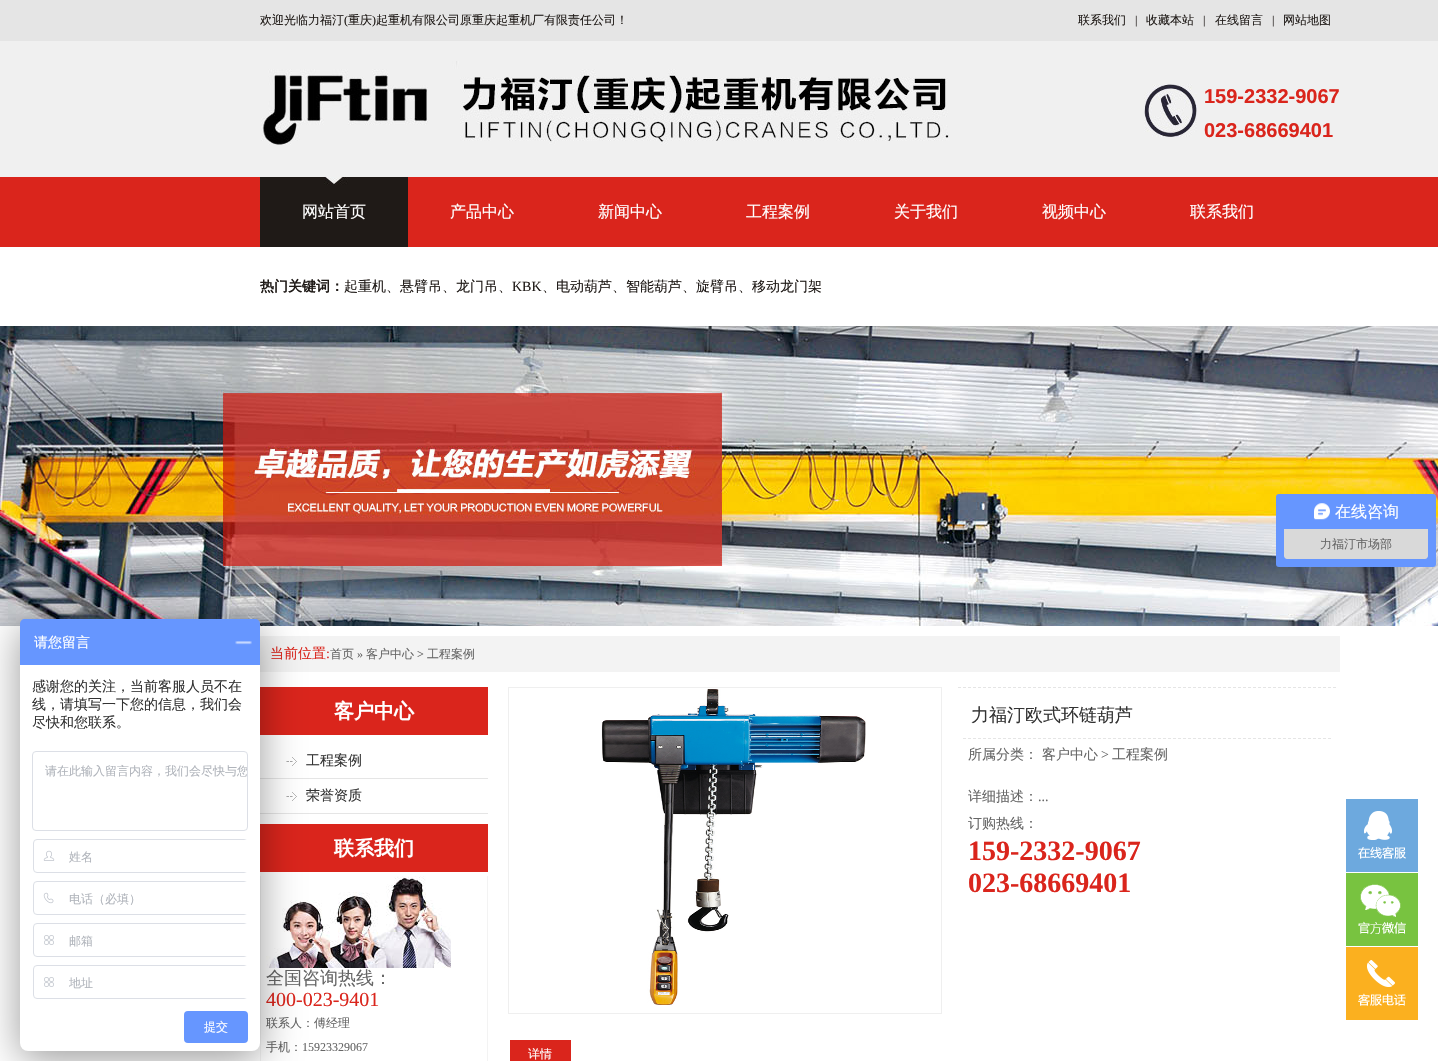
#include "include/core/SkBlurTypes.h"
#include "include/core/SkCanvas.h"
#include "include/core/SkData.h"
#include "include/core/SkFont.h"
#include "include/core/SkFontMgr.h"
#include "include/core/SkImage.h"
#include "include/core/SkMaskFilter.h"
#include "include/core/SkPaint.h"
#include "include/core/SkPathBuilder.h"
#include "include/core/SkTextBlob.h"
#include "include/effects/SkDashPathEffect.h"
#include "include/effects/SkGradientShader.h"
#include "include/utils/SkParsePath.h"

extern sk_sp<SkFontMgr> fontMgr;

void draw(SkCanvas* canvas) {
    SkPaint p;
    p.setAntiAlias(true);
    auto font = [&](const char* family, int weight, float size, bool italic = false) {
        SkFontStyle style(weight, SkFontStyle::kNormal_Width,
            italic ? SkFontStyle::kItalic_Slant : SkFontStyle::kUpright_Slant);
        SkFont result(fontMgr->matchFamilyStyle(family, style), size);
        result.setSubpixel(true);
        return result;
    };
    auto drawPhoto = [&](const char* path, float l, float t, float r, float b) {
        auto image = SkImages::DeferredFromEncodedData(SkData::MakeFromFileName(path));
        canvas->drawImageRect(image, SkRect::MakeLTRB(l, t, r, b), SkSamplingOptions());
    };
    canvas->clear(0xFFFFFFFF);
    drawPhoto("media/1.png", 0, 0, 1438, 247);
    auto font1 = font("WenQuanYi Zen Hei", 500, 12);
    p.setColor(0xFF1F1A17);
    canvas->drawString("欢迎光临力福汀", 260, 24, font1, p);
    auto font2 = font("Liberation Serif", 400, 12);
    canvas->drawString("(", 344, 24, font2, p);
    canvas->drawString("重庆", 348, 24, font1, p);
    canvas->drawString(")", 372, 24, font2, p);
    canvas->drawString("起重机有限公司原重庆起重机厂有限责任公司！", 376, 24, font1, p);
    canvas->drawString("联系我们", 1078, 24, font1, p);
    canvas->drawString("|", 1135, 24, font2, p);
    canvas->drawString("收藏本站", 1146, 24, font1, p);
    canvas->drawString("|", 1203, 24, font2, p);
    canvas->drawString("在线留言", 1215, 24, font1, p);
    canvas->drawString("|", 1272, 24, font2, p);
    canvas->drawString("网站地图", 1283, 24, font1, p);
    drawPhoto("media/2.png", 261, 61, 949, 145);
    drawPhoto("media/3.png", 1144, 84, 1197, 137);
    auto font3 = font("Liberation Sans", 700, 20);
    p.setColor(0xFFDA251C);
    canvas->drawString("159-2332-9067", 1204, 103, font3, p);
    canvas->drawString("023-68669401", 1204, 137, font3, p);
    drawPhoto("media/4.png", 260, 177, 408, 247);
    auto font4 = font("WenQuanYi Zen Hei", 500, 16);
    p.setColor(0xFFFFFFFF);
    {
        const struct { const char* s; float x, y; } items[] = {
            {"网站首页", 302, 217},
            {"产品中心", 450, 217},
            {"新闻中心", 598, 217},
            {"工程案例", 746, 217},
            {"关于我们", 894, 217},
            {"视频中心", 1042, 217},
            {"联系我们", 1190, 217},
        };
        for (auto [s, x, y] : items) {
            canvas->drawString(s, x, y, font4, p);
        }
    }
    auto font5 = font("WenQuanYi Zen Hei", 700, 14);
    p.setColor(0xFF1F1A17);
    canvas->drawString("热门关键词：", 260, 291, font5, p);
    auto font6 = font("WenQuanYi Zen Hei", 500, 14);
    canvas->drawString("起重机、悬臂吊、龙门吊、", 344, 291, font6, p);
    auto font7 = font("Liberation Serif", 400, 14);
    canvas->drawString("KBK", 512, 291, font7, p);
    canvas->drawString("、电动葫芦、智能葫芦、旋臂吊、移动龙门架", 542, 291, font6, p);
    drawPhoto("media/5.png", 0, 326, 1438, 626);
    p.setColor(0xFFF3F3F3);
    canvas->drawRect(SkRect::MakeLTRB(260, 636, 1340, 672), p);
    p.setColor(0xFFDA251C);
    canvas->drawString("当前位置", 270, 658, font6, p);
    canvas->drawString(":", 326, 658, font7, p);
    p.setColor(0xFF666666);
    canvas->drawString("首页", 330, 658, font1, p);
    canvas->drawString("»", 357, 658, font2, p);
    canvas->drawString("客户中心", 366, 658, font1, p);
    canvas->drawString(">", 417, 658, font2, p);
    canvas->drawString("工程案例", 427, 658, font1, p);
    p.setColor(0xFFDA251C);
    canvas->drawRect(SkRect::MakeLTRB(260, 687, 488, 735), p);
    auto font8 = font("WenQuanYi Zen Hei", 700, 20);
    p.setColor(0xFFFFFFFF);
    canvas->drawString("客户中心", 334, 718, font8, p);
    p.setColor(0xFFE5E5E5);
    canvas->drawRect(SkRect::MakeLTRB(260, 778, 488, 779), p);
    drawPhoto("media/6.png", 286, 757, 297, 766);
    p.setColor(0xFF333333);
    canvas->drawString("工程案例", 306, 765, font6, p);
    p.setColor(0xFFE5E5E5);
    canvas->drawRect(SkRect::MakeLTRB(260, 813, 488, 814), p);
    drawPhoto("media/6.png", 286, 792, 297, 801);
    p.setColor(0xFF333333);
    canvas->drawString("荣誉资质", 306, 800, font6, p);
    p.setColor(0xFFDA251C);
    canvas->drawRect(SkRect::MakeLTRB(260, 824, 488, 872), p);
    p.setColor(0xFFFFFFFF);
    canvas->drawString("联系我们", 334, 855, font8, p);
    p.setColor(0xFFF3F3F3);
    canvas->drawRect(SkRect::MakeLTRB(487, 876, 488, 1061), p);
    canvas->drawRect(SkRect::MakeLTRB(260, 876, 261, 1061), p);
    drawPhoto("media/7.png", 266, 876, 451, 968);
    auto font9 = font("WenQuanYi Zen Hei", 500, 18);
    p.setColor(0xFF666666);
    canvas->drawString("全国咨询热线：", 266, 984, font9, p);
    auto font10 = font("Liberation Serif", 400, 20);
    p.setColor(0xFFDA251C);
    canvas->drawString("400-023-9401", 266, 1006, font10, p);
    p.setColor(0xFF666666);
    canvas->drawString("联系人：傅经理", 266, 1027, font1, p);
    canvas->drawString("手机：", 266, 1051, font1, p);
    canvas->drawString("15923329067", 302, 1051, font2, p);
    p.setStyle(SkPaint::kStroke_Style);
    p.setStrokeWidth(1);
    p.setColor(0xFFEFEFEF);
    canvas->drawRect(SkRect::MakeLTRB(508.5f, 687.5f, 941.5f, 1013.5f), p);
    drawPhoto("media/8.png", 601, 689, 866, 1005);
    p.setColor(0xFFE5E5E5);
    p.setPathEffect(SkDashPathEffect::Make({{3, 2}}, 0));
    canvas->drawPath(SkPathBuilder().moveTo(958, 687.5f).lineTo(1336, 687.5f).detach(), p);
    p.setPathEffect(nullptr);
    p.setPathEffect(SkDashPathEffect::Make({{3, 2}}, 0));
    canvas->drawPath(SkPathBuilder().moveTo(963, 738.5f).lineTo(1331, 738.5f).detach(), p);
    p.setPathEffect(nullptr);
    p.setStyle(SkPaint::kFill_Style);
    p.setColor(0xFF333333);
    canvas->drawString("力福汀欧式环链葫芦", 971, 721, font9, p);
    p.setColor(0xFF666666);
    canvas->drawString("所属分类：", 968, 759, font6, p);
    canvas->drawString("客户中心", 1042, 759, font6, p);
    canvas->drawString(">", 1101, 759, font7, p);
    canvas->drawString("工程案例", 1112, 759, font6, p);
    canvas->drawString("详细描述：", 968, 801, font6, p);
    canvas->drawString("...", 1038, 801, font7, p);
    canvas->drawString("订购热线：", 968, 828, font6, p);
    auto font11 = font("Liberation Serif", 700, 28);
    p.setColor(0xFFDA251C);
    canvas->drawString("159-2332-9067", 968, 860, font11, p);
    canvas->drawString("023-68669401", 968, 892, font11, p);
    canvas->drawRect(SkRect::MakeLTRB(510, 1040, 571, 1061), p);
    p.setColor(0xFFFFFFFF);
    canvas->drawString("详情", 528, 1058, font1, p);
    p.setColor(0xFF6DA9DE);
    canvas->drawRect(SkRect::MakeLTRB(1346, 799, 1418, 872), p);
    drawPhoto("media/9.png", 1358, 811, 1406, 859);
    p.setColor(0xFF78C340);
    canvas->drawRect(SkRect::MakeLTRB(1346, 873, 1418, 946), p);
    drawPhoto("media/10.png", 1358, 884, 1406, 934);
    p.setColor(0xFFFBB01F);
    canvas->drawRect(SkRect::MakeLTRB(1346, 947, 1418, 1020), p);
    drawPhoto("media/11.png", 1358, 960, 1406, 1006);
    p.setColor(0xFF6696FF);
    canvas->drawRoundRect(SkRect::MakeLTRB(1276, 494, 1436, 567), 3, 3, p);
    drawPhoto("media/12.png", 1314, 503, 1330, 520);
    p.setColor(0xFFFFFFFF);
    canvas->drawString("在线咨询", 1335, 517, font4, p);
    p.setColor(0xFFD9D9D9);
    canvas->drawPath(SkPathBuilder().moveTo(1284, 529).lineTo(1428, 529).lineTo(1428, 556).cubicTo(1428, 557.5f, 1426.5f, 559, 1425, 559).lineTo(1287, 559).cubicTo(1285.5f, 559, 1284, 557.5f, 1284, 556).close().detach(), p);
    p.setColor(0xFF666666);
    canvas->drawString("力福汀市场部", 1320, 548, font1, p);
    p.setColor(0x66000000);
    p.setMaskFilter(SkMaskFilter::MakeBlur(kNormal_SkBlurStyle, 20));
    canvas->drawRoundRect(SkRect::MakeLTRB(20, 627, 260, 1059), 8, 8, p);
    p.setMaskFilter(nullptr);
    p.setColor(0xFFFFFFFF);
    canvas->drawRoundRect(SkRect::MakeLTRB(20, 619, 260, 1051), 8, 8, p);
    p.setColor(0xFF6696FF);
    canvas->drawPath(SkPathBuilder().moveTo(25, 619).lineTo(255, 619).cubicTo(258, 619, 260, 621, 260, 624).lineTo(260, 665).lineTo(20, 665).lineTo(20, 624).cubicTo(20, 621, 22, 619, 25, 619).close().detach(), p);
    p.setColor(0xFFFFFFFF);
    canvas->drawString("请您留言", 34, 647, font6, p);
    drawPhoto("media/13.png", 235, 641, 252, 645);
    p.setColor(0xFF333333);
    {
        const struct { const char* s; float x, y; } items[] = {
            {"感谢您的关注，当前客服人员不在", 32, 691},
            {"线，请填写一下您的信息，我们会", 32, 709},
            {"尽快和您联系。", 32, 727},
        };
        for (auto [s, x, y] : items) {
            canvas->drawString(s, x, y, font6, p);
        }
    }
    p.setStyle(SkPaint::kStroke_Style);
    p.setColor(0xFFDCDFE6);
    canvas->drawRoundRect(SkRect::MakeLTRB(32.5f, 751.5f, 247.5f, 830.5f), 3.5f, 3.5f, p);
    canvas->save();
    canvas->clipPath(SkPathBuilder().moveTo(36, 752).lineTo(244, 752).cubicTo(245.5f, 752, 247, 753.5f, 247, 755).lineTo(247, 827).cubicTo(247, 828.5f, 245.5f, 830, 244, 830).lineTo(36, 830).cubicTo(34.5f, 830, 33, 828.5f, 33, 827).lineTo(33, 755).cubicTo(33, 753.5f, 34.5f, 752, 36, 752).close().detach(), true);
    p.setStyle(SkPaint::kFill_Style);
    p.setColor(0xFFB0B4BB);
    canvas->drawString("请在此输入留言内容，我们会尽快与您", 45, 775, font1, p);
    canvas->restore();
    p.setStyle(SkPaint::kStroke_Style);
    p.setColor(0xFFDCDFE6);
    canvas->drawRoundRect(SkRect::MakeLTRB(33.5f, 839.5f, 247.5f, 872.5f), 3.5f, 3.5f, p);
    drawPhoto("media/14.png", 43, 850, 55, 861);
    p.setStyle(SkPaint::kFill_Style);
    p.setColor(0xFFFFFFFF);
    canvas->drawRect(SkRect::MakeLTRB(244, 840, 248, 872), p);
    p.setColor(0xFFB0B4BB);
    canvas->drawString("姓名", 69, 861, font1, p);
    p.setStyle(SkPaint::kStroke_Style);
    p.setColor(0xFFDCDFE6);
    canvas->drawRoundRect(SkRect::MakeLTRB(33.5f, 881.5f, 247.5f, 914.5f), 3.5f, 3.5f, p);
    drawPhoto("media/15.png", 43, 892, 54, 904);
    p.setStyle(SkPaint::kFill_Style);
    p.setColor(0xFFFFFFFF);
    canvas->drawRect(SkRect::MakeLTRB(244, 882, 248, 914), p);
    p.setColor(0xFFB0B4BB);
    canvas->drawString("电话（必填）", 69, 903, font1, p);
    p.setStyle(SkPaint::kStroke_Style);
    p.setColor(0xFFDCDFE6);
    canvas->drawRoundRect(SkRect::MakeLTRB(33.5f, 923.5f, 247.5f, 956.5f), 3.5f, 3.5f, p);
    drawPhoto("media/16.png", 44, 935, 54, 945);
    p.setStyle(SkPaint::kFill_Style);
    p.setColor(0xFFFFFFFF);
    canvas->drawRect(SkRect::MakeLTRB(244, 924, 248, 956), p);
    p.setColor(0xFFB0B4BB);
    canvas->drawString("邮箱", 69, 945, font1, p);
    p.setStyle(SkPaint::kStroke_Style);
    p.setColor(0xFFDCDFE6);
    canvas->drawRoundRect(SkRect::MakeLTRB(33.5f, 965.5f, 247.5f, 998.5f), 3.5f, 3.5f, p);
    drawPhoto("media/16.png", 44, 977, 54, 987);
    p.setStyle(SkPaint::kFill_Style);
    p.setColor(0xFFFFFFFF);
    canvas->drawRect(SkRect::MakeLTRB(244, 966, 248, 998), p);
    canvas->save();
    canvas->clipRect(SkRect::MakeLTRB(69, 975, 250, 992));
    p.setColor(0xFFB0B4BB);
    canvas->drawString("地址", 69, 987, font1, p);
    canvas->restore();
    p.setColor(0xFF6696FF);
    canvas->drawRoundRect(SkRect::MakeLTRB(184, 1011, 248, 1043), 4, 4, p);
    p.setColor(0xFFFFFFFF);
    canvas->drawString("提交", 204, 1031, font1, p);
}
